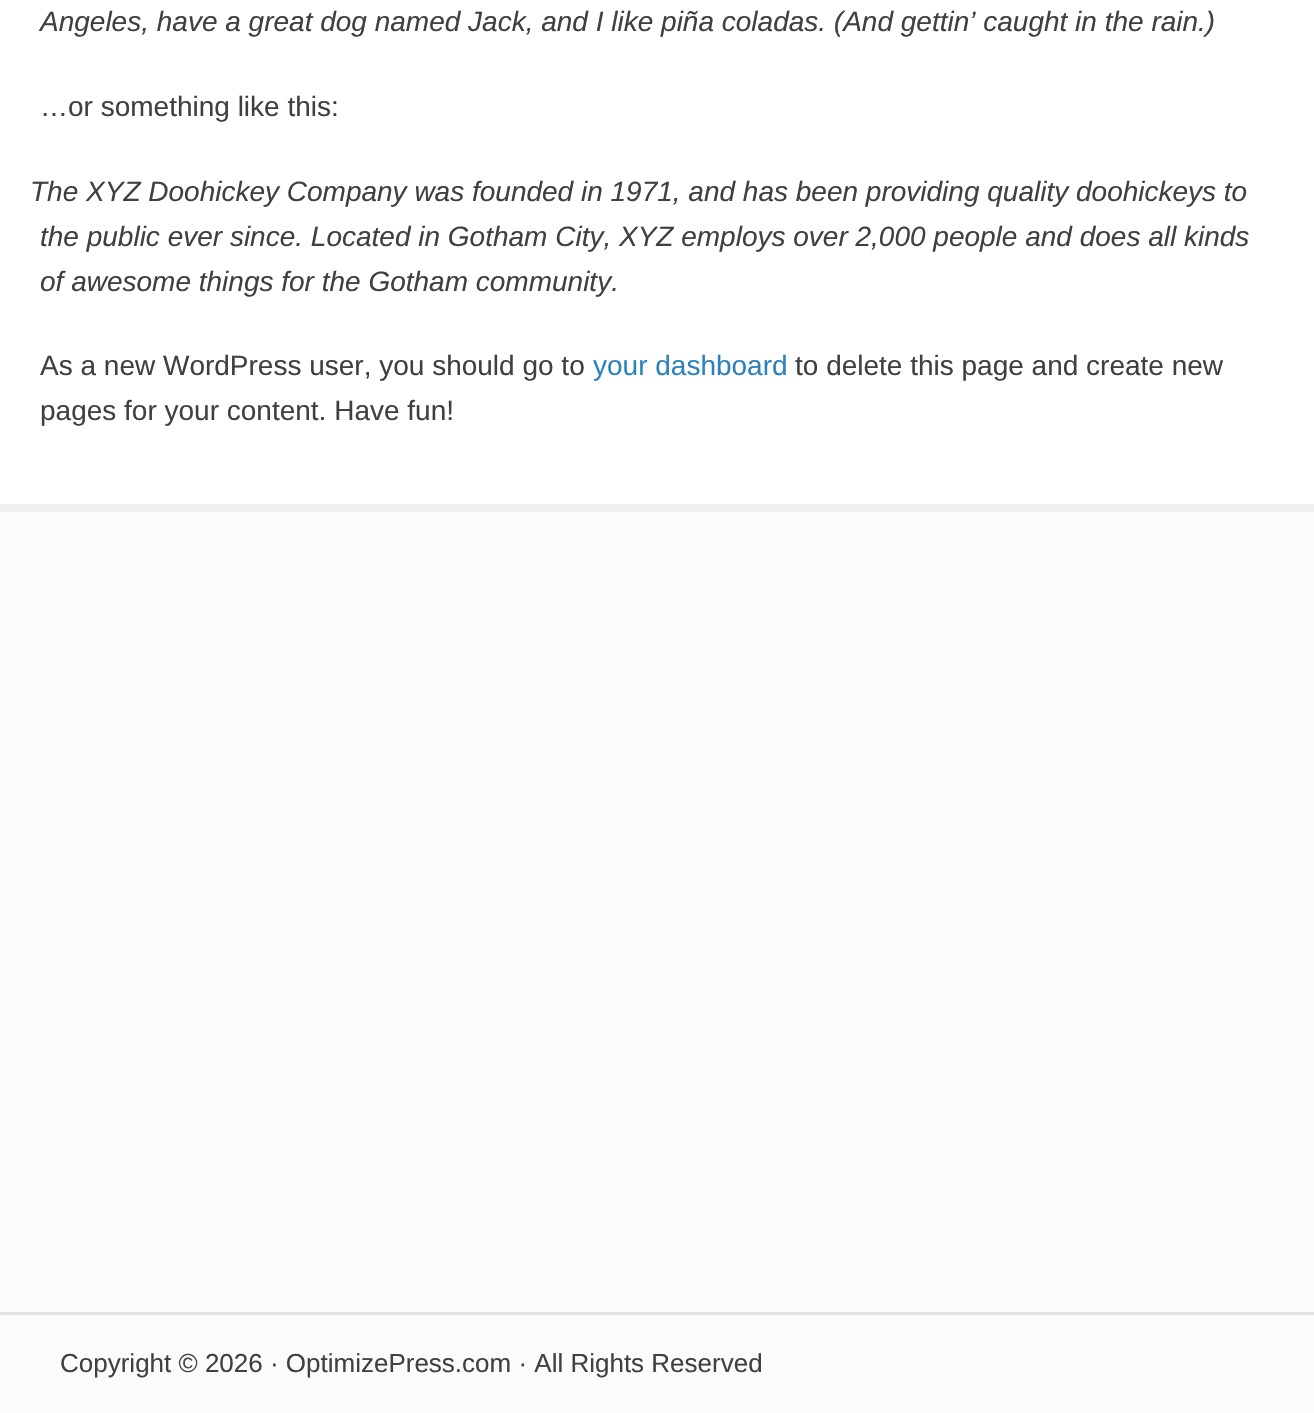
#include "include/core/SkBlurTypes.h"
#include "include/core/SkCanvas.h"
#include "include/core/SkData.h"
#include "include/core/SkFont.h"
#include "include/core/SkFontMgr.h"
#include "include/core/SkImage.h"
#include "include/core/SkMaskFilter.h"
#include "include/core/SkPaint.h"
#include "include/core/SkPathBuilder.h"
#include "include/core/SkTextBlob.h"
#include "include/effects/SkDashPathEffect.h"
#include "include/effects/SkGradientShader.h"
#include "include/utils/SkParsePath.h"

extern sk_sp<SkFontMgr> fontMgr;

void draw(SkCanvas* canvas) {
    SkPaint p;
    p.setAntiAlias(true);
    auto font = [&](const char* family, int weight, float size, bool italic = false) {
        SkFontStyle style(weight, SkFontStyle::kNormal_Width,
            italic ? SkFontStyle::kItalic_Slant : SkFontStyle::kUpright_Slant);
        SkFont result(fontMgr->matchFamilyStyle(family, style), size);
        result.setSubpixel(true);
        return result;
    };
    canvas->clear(0xFFFFFFFF);
    auto font1 = font("Liberation Sans", 400, 28, true);
    p.setColor(0xFF404040);
    canvas->drawString("Angeles, have a great dog named Jack, and I like piña coladas. (And gettin’ caught in the rain.)", 40, 31, font1, p);
    auto font2 = font("Liberation Sans", 400, 28);
    canvas->drawString("…or something like this:", 40, 116, font2, p);
    {
        const struct { const char* s; float x, y; } items[] = {
            {"The XYZ Doohickey Company was founded in 1971, and has been providing quality doohickeys to", 30, 201},
            {"the public ever since. Located in Gotham City, XYZ employs over 2,000 people and does all kinds", 40, 246},
            {"of awesome things for the Gotham community.", 40, 291},
        };
        for (auto [s, x, y] : items) {
            canvas->drawString(s, x, y, font1, p);
        }
    }
    canvas->drawString("As a new WordPress user, you should go to", 40, 375, font2, p);
    p.setColor(0xFF2E82BC);
    canvas->drawString("your dashboard", 593, 375, font2, p);
    p.setColor(0xFF404040);
    canvas->drawString("to delete this page and create new", 795, 375, font2, p);
    canvas->drawString("pages for your content. Have fun!", 40, 420, font2, p);
    {
        const struct { float l, t, r, b; SkColor color; } items[] = {
            {0, 512, 1314, 1312, 0xFFFCFCFC},
            {0, 504, 1314, 512, 0xFFF0F0F0},
            {0, 1315, 1314, 1413, 0xFFFBFBFB},
            {0, 1312, 1314, 1315, 0xFFE1E1E1},
        };
        for (auto [l, t, r, b, color] : items) {
            p.setColor(color);
            canvas->drawRect(SkRect::MakeLTRB(l, t, r, b), p);
        }
    }
    auto font3 = font("Liberation Sans", 400, 26);
    p.setColor(0xFF404040);
    canvas->drawString("Copyright © 2026 · OptimizePress.com · All Rights Reserved", 60, 1372, font3, p);
}
